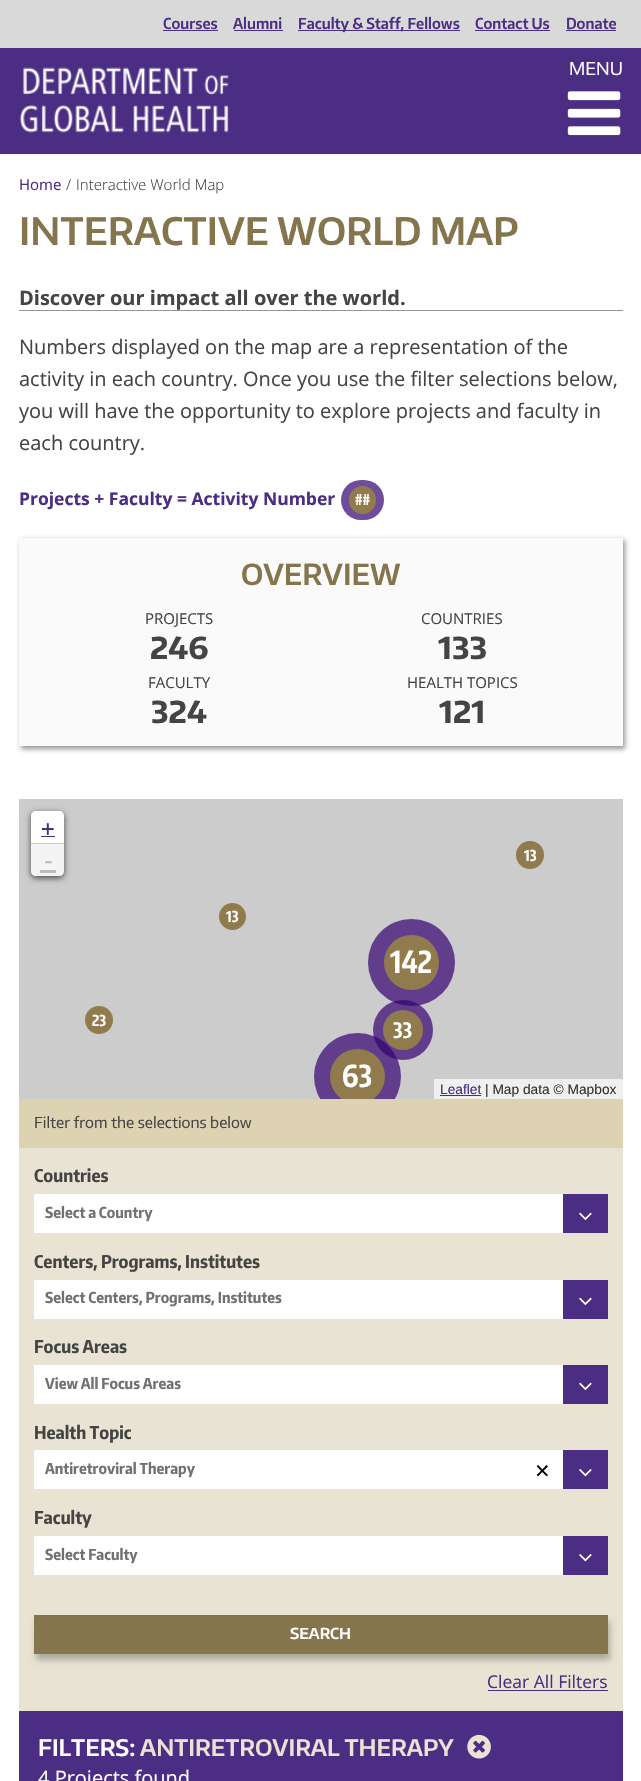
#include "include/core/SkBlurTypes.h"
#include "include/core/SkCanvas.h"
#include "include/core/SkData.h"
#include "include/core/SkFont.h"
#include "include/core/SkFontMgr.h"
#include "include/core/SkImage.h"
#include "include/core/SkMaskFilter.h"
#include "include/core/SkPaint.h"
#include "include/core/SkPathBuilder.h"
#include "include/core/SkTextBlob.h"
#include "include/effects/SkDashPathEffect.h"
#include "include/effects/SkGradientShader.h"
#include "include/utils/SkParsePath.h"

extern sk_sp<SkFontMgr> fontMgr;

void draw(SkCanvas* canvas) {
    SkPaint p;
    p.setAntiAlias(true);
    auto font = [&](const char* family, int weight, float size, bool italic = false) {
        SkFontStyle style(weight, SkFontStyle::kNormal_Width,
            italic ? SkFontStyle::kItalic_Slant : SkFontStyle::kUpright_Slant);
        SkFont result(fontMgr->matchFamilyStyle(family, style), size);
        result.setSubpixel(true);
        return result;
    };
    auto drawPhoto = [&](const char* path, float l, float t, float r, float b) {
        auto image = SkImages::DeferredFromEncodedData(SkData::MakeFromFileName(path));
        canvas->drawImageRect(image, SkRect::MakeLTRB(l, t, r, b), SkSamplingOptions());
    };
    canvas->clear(0xFFD9D9D9);
    auto font1 = font("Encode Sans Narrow", 600, 15);
    p.setColor(0xFF4B2E84);
    canvas->drawString("Courses", 163, 29, font1, p);
    canvas->drawRect(SkRect::MakeLTRB(163, 30, 218, 31), p);
    canvas->drawString("Alumni", 233, 29, font1, p);
    canvas->drawRect(SkRect::MakeLTRB(234, 30, 283, 31), p);
    canvas->drawRect(SkRect::MakeLTRB(298, 30, 460, 31), p);
    canvas->drawString("Faculty & Staff, Fellows", 298, 29, font1, p);
    canvas->drawString("Contact Us", 475, 29, font1, p);
    canvas->drawRect(SkRect::MakeLTRB(475, 30, 550, 31), p);
    canvas->drawString("Donate", 566, 29, font1, p);
    canvas->drawRect(SkRect::MakeLTRB(566, 30, 616, 31), p);
    canvas->drawRect(SkRect::MakeLTRB(0, 48, 641, 154), p);
    drawPhoto("media/1.png", 19, 67, 229, 133);
    auto font2 = font("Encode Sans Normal", 400, 17.5f);
    p.setColor(0xFFFFFFFF);
    canvas->drawString("MENU", 569, 75, font2, p);
    drawPhoto("media/2.png", 567, 91, 621, 136);
    canvas->drawRect(SkRect::MakeLTRB(0, 154, 641, 1781), p);
    auto font3 = font("Open Sans", 400, 15);
    p.setColor(0xFF4B2E84);
    canvas->drawString("Home", 19, 190, font3, p);
    auto font4 = font("Open Sans", 300, 15);
    p.setColor(0xFF444444);
    canvas->drawString("/", 66, 190, font4, p);
    canvas->drawString("Interactive World Map", 76, 190, font4, p);
    auto font5 = font("Encode Sans Normal", 600, 37.5f);
    p.setColor(0xFF85754D);
    canvas->drawString("INTERACTIVE WORLD MAP", 19, 245, font5, p);
    p.setColor(0xFF959595);
    canvas->drawRect(SkRect::MakeLTRB(19, 310, 623, 311), p);
    auto font6 = font("Open Sans", 700, 20);
    p.setColor(0xFF444444);
    canvas->drawString("Discover our impact all over the world.", 19, 305, font6, p);
    auto font7 = font("Open Sans", 400, 20);
    {
        const struct { const char* s; float x, y; } items[] = {
            {"Numbers displayed on the map are a representation of the", 19, 354},
            {"activity in each country. Once you use the filter selections below,", 19, 386},
            {"you will have the opportunity to explore projects and faculty in", 19, 418},
            {"each country.", 19, 450},
        };
        for (auto [s, x, y] : items) {
            canvas->drawString(s, x, y, font7, p);
        }
    }
    auto font8 = font("Open Sans", 700, 17.5f);
    p.setColor(0xFF4B2E84);
    canvas->drawString("Projects + Faculty = Activity Number", 19, 505, font8, p);
    p.setColor(0xFF704D9A);
    canvas->drawRoundRect(SkRect::MakeLTRB(341, 480, 384, 520), 20, 20, p);
    p.setColor(0xFF917B4C);
    canvas->drawRoundRect(SkRect::MakeLTRB(349, 486, 376, 514), 13.5f, 13.5f, p);
    auto font9 = font("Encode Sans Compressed", 700, 15);
    p.setColor(0xFFFFFFFF);
    canvas->drawString("##", 355, 505, font9, p);
    p.setColor(0xFF959595);
    p.setMaskFilter(SkMaskFilter::MakeBlur(kNormal_SkBlurStyle, 2.5f));
    canvas->drawRect(SkRect::MakeLTRB(21, 540, 625, 749), p);
    p.setMaskFilter(nullptr);
    p.setColor(0xFFFAFAFA);
    canvas->drawRect(SkRect::MakeLTRB(19, 538, 623, 746), p);
    auto font10 = font("Encode Sans Normal", 600, 28.75f);
    p.setColor(0xFF85754D);
    canvas->drawString("OVERVIEW", 241, 585, font10, p);
    p.setColor(0xFF444444);
    canvas->drawString("PROJECTS", 145, 624, font3, p);
    auto font11 = font("Encode Sans Normal", 700, 30);
    canvas->drawString("246", 150, 659, font11, p);
    canvas->drawString("COUNTRIES", 421, 624, font3, p);
    canvas->drawString("133", 438, 659, font11, p);
    canvas->drawString("FACULTY", 148, 688, font3, p);
    canvas->drawString("324", 151, 723, font11, p);
    canvas->drawString("HEALTH TOPICS", 407, 688, font3, p);
    canvas->drawString("121", 439, 723, font11, p);
    p.setColor(0xFFCDCCCC);
    canvas->drawRect(SkRect::MakeLTRB(19, 799, 623, 1099), p);
    p.setColor(0xA6000000);
    p.setMaskFilter(SkMaskFilter::MakeBlur(kNormal_SkBlurStyle, 3));
    canvas->drawRoundRect(SkRect::MakeLTRB(31, 813, 64, 878), 5, 5, p);
    p.setMaskFilter(nullptr);
    p.setColor(0xFFFFFFFF);
    canvas->drawPath(SkPathBuilder().moveTo(36, 811).lineTo(59, 811).cubicTo(62, 811, 64, 813, 64, 816).lineTo(64, 844).lineTo(31, 844).lineTo(31, 816).cubicTo(31, 813, 33, 811, 36, 811).close().detach(), p);
    p.setColor(0xFFCCCCCC);
    canvas->drawRect(SkRect::MakeLTRB(31, 843, 64, 844), p);
    auto font12 = font("DejaVu Sans Mono", 400, 22.5f);
    p.setColor(0xFF4B2E84);
    canvas->drawString("+", 41, 836, font12, p);
    canvas->drawRect(SkRect::MakeLTRB(41, 836, 55, 837), p);
    p.setColor(0xFFF4F4F4);
    canvas->drawPath(SkPathBuilder().moveTo(31, 844).lineTo(64, 844).lineTo(64, 871).cubicTo(64, 874, 62, 876, 59, 876).lineTo(36, 876).cubicTo(33, 876, 31, 874, 31, 871).close().detach(), p);
    auto font13 = font("DejaVu Sans Mono", 400, 25);
    p.setColor(0xFFBBBBBB);
    canvas->drawString("-", 41, 869, font13, p);
    canvas->drawRect(SkRect::MakeLTRB(40, 870, 56, 873), p);
    p.setColor(0xFFF0F0F0);
    canvas->drawRect(SkRect::MakeLTRB(434, 1079, 623, 1099), p);
    auto font14 = font("Liberation Sans", 400, 13.75f);
    p.setColor(0xFF4B2E84);
    canvas->drawString("Leaflet", 440, 1094, font14, p);
    canvas->drawRect(SkRect::MakeLTRB(440, 1095, 481, 1096), p);
    p.setColor(0xFF333333);
    canvas->drawString("| Map data © Mapbox", 485, 1094, font14, p);
    p.setColor(0xFF917B4C);
    canvas->drawCircle(530, 855, 14, p);
    p.setColor(0xFFFFFFFF);
    canvas->drawString("13", 524, 861, font9, p);
    p.setColor(0xFF917B4C);
    canvas->drawCircle(232.5f, 916.5f, 13.5f, p);
    p.setColor(0xFFFFFFFF);
    canvas->drawString("13", 226, 922, font9, p);
    p.setColor(0xFF613D8B);
    canvas->drawCircle(411.5f, 962.5f, 43.5f, p);
    p.setColor(0xFF917B4C);
    canvas->drawCircle(411.5f, 962.5f, 27.5f, p);
    auto font15 = font("Encode Sans Compressed", 700, 30);
    p.setColor(0xFFFFFFFF);
    canvas->drawString("142", 390, 973, font15, p);
    p.setColor(0xFF917B4C);
    canvas->drawCircle(99, 1020, 14, p);
    p.setColor(0xFFFFFFFF);
    canvas->drawString("23", 92, 1026, font9, p);
    p.setColor(0xB333006F);
    canvas->drawCircle(403, 1030, 30, p);
    p.setColor(0xFF917B4C);
    canvas->drawCircle(403, 1030, 20, p);
    auto font16 = font("Encode Sans Compressed", 700, 21);
    p.setColor(0xFFFFFFFF);
    canvas->drawString("33", 393, 1038, font16, p);
    p.setColor(0xFFDDD3B3);
    canvas->drawRect(SkRect::MakeLTRB(19, 1099, 623, 1148), p);
    canvas->save();
    canvas->clipRect(SkRect::MakeLTRB(19, 799, 623, 1099));
    p.setColor(0xB333006F);
    canvas->drawCircle(357.5f, 1076.5f, 43.5f, p);
    p.setColor(0xFF917B4C);
    canvas->drawCircle(357.5f, 1076.5f, 27.5f, p);
    canvas->restore();
    p.setColor(0xFFFFFFFF);
    canvas->drawString("63", 342, 1087, font15, p);
    p.setColor(0xFFE8E3D3);
    canvas->drawRect(SkRect::MakeLTRB(19, 1148, 623, 1711), p);
    auto font17 = font("Encode Sans Normal", 400, 15);
    p.setColor(0xFF444444);
    canvas->drawString("Filter from the selections below", 34, 1128, font17, p);
    auto font18 = font("Encode Sans Condensed", 700, 17.5f);
    canvas->drawString("Countries", 34, 1182, font18, p);
    p.setColor(0xFFFFFFFF);
    canvas->drawRect(SkRect::MakeLTRB(34, 1194, 563, 1233), p);
    auto font19 = font("Encode Sans Condensed", 700, 15);
    p.setColor(0xFF717171);
    canvas->drawString("Select a Country", 45, 1218, font19, p);
    p.setColor(0xFF4B2E84);
    canvas->drawRect(SkRect::MakeLTRB(563, 1194, 608, 1233), p);
    drawPhoto("media/3.png", 579, 1212, 592, 1220);
    p.setColor(0xFF444444);
    canvas->drawString("Centers, Programs, Institutes", 34, 1268, font18, p);
    p.setColor(0xFFFFFFFF);
    canvas->drawRect(SkRect::MakeLTRB(34, 1280, 563, 1319), p);
    p.setColor(0xFF717171);
    canvas->drawString("Select Centers, Programs, Institutes", 45, 1303, font19, p);
    p.setColor(0xFF4B2E84);
    canvas->drawRect(SkRect::MakeLTRB(563, 1280, 608, 1319), p);
    drawPhoto("media/3.png", 579, 1297, 592, 1305);
    p.setColor(0xFF444444);
    canvas->drawString("Focus Areas", 34, 1353, font18, p);
    p.setColor(0xFFFFFFFF);
    canvas->drawRect(SkRect::MakeLTRB(34, 1365, 563, 1404), p);
    p.setColor(0xFF717171);
    canvas->drawString("View All Focus Areas", 45, 1389, font19, p);
    p.setColor(0xFF4B2E84);
    canvas->drawRect(SkRect::MakeLTRB(563, 1365, 608, 1404), p);
    drawPhoto("media/3.png", 579, 1382, 592, 1390);
    p.setColor(0xFF444444);
    canvas->drawString("Health Topic", 34, 1439, font18, p);
    p.setColor(0xFFFFFFFF);
    canvas->drawRect(SkRect::MakeLTRB(34, 1450, 563, 1489), p);
    p.setColor(0xFF717171);
    canvas->drawString("Antiretroviral Therapy", 45, 1474, font19, p);
    auto font20 = font("Liberation Sans", 400, 25);
    p.setColor(0xFF000000);
    canvas->drawString("×", 535, 1479, font20, p);
    p.setColor(0xFF4B2E84);
    canvas->drawRect(SkRect::MakeLTRB(563, 1450, 608, 1489), p);
    drawPhoto("media/4.png", 579, 1469, 592, 1477);
    p.setColor(0xFF444444);
    canvas->drawString("Faculty", 34, 1524, font18, p);
    p.setColor(0xFFFFFFFF);
    canvas->drawRect(SkRect::MakeLTRB(34, 1536, 563, 1575), p);
    p.setColor(0xFF717171);
    canvas->drawString("Select Faculty", 45, 1560, font19, p);
    p.setColor(0xFF4B2E84);
    canvas->drawRect(SkRect::MakeLTRB(563, 1536, 608, 1575), p);
    drawPhoto("media/4.png", 579, 1554, 592, 1562);
    p.setColor(0x40000000);
    p.setMaskFilter(SkMaskFilter::MakeBlur(kNormal_SkBlurStyle, 3));
    canvas->drawRect(SkRect::MakeLTRB(36, 1621, 610, 1660), p);
    p.setMaskFilter(nullptr);
    p.setColor(0xFF85754D);
    canvas->drawRect(SkRect::MakeLTRB(34, 1615, 608, 1654), p);
    auto font21 = font("Encode Sans Normal", 600, 15);
    p.setColor(0xFFFFFFFF);
    canvas->drawString("SEARCH", 290, 1639, font21, p);
    auto font22 = font("Open Sans", 400, 17.5f);
    p.setColor(0xFF4B2E84);
    canvas->drawString("Clear All Filters", 487, 1688, font22, p);
    canvas->drawRect(SkRect::MakeLTRB(488, 1690, 608, 1691), p);
    canvas->drawRect(SkRect::MakeLTRB(19, 1711, 623, 1781), p);
    auto font23 = font("Encode Sans Normal", 600, 22.5f);
    p.setColor(0xFFFFFFFF);
    canvas->drawString("FILTERS:", 38, 1756, font23, p);
    p.setColor(0xFFE8E3D3);
    canvas->drawString("ANTIRETROVIRAL THERAPY", 140, 1756, font23, p);
    drawPhoto("media/5.png", 467, 1734, 491, 1759);
    p.setColor(0xFFFFFFFF);
    canvas->drawString("4 Projects found", 38, 1785, font7, p);
}
